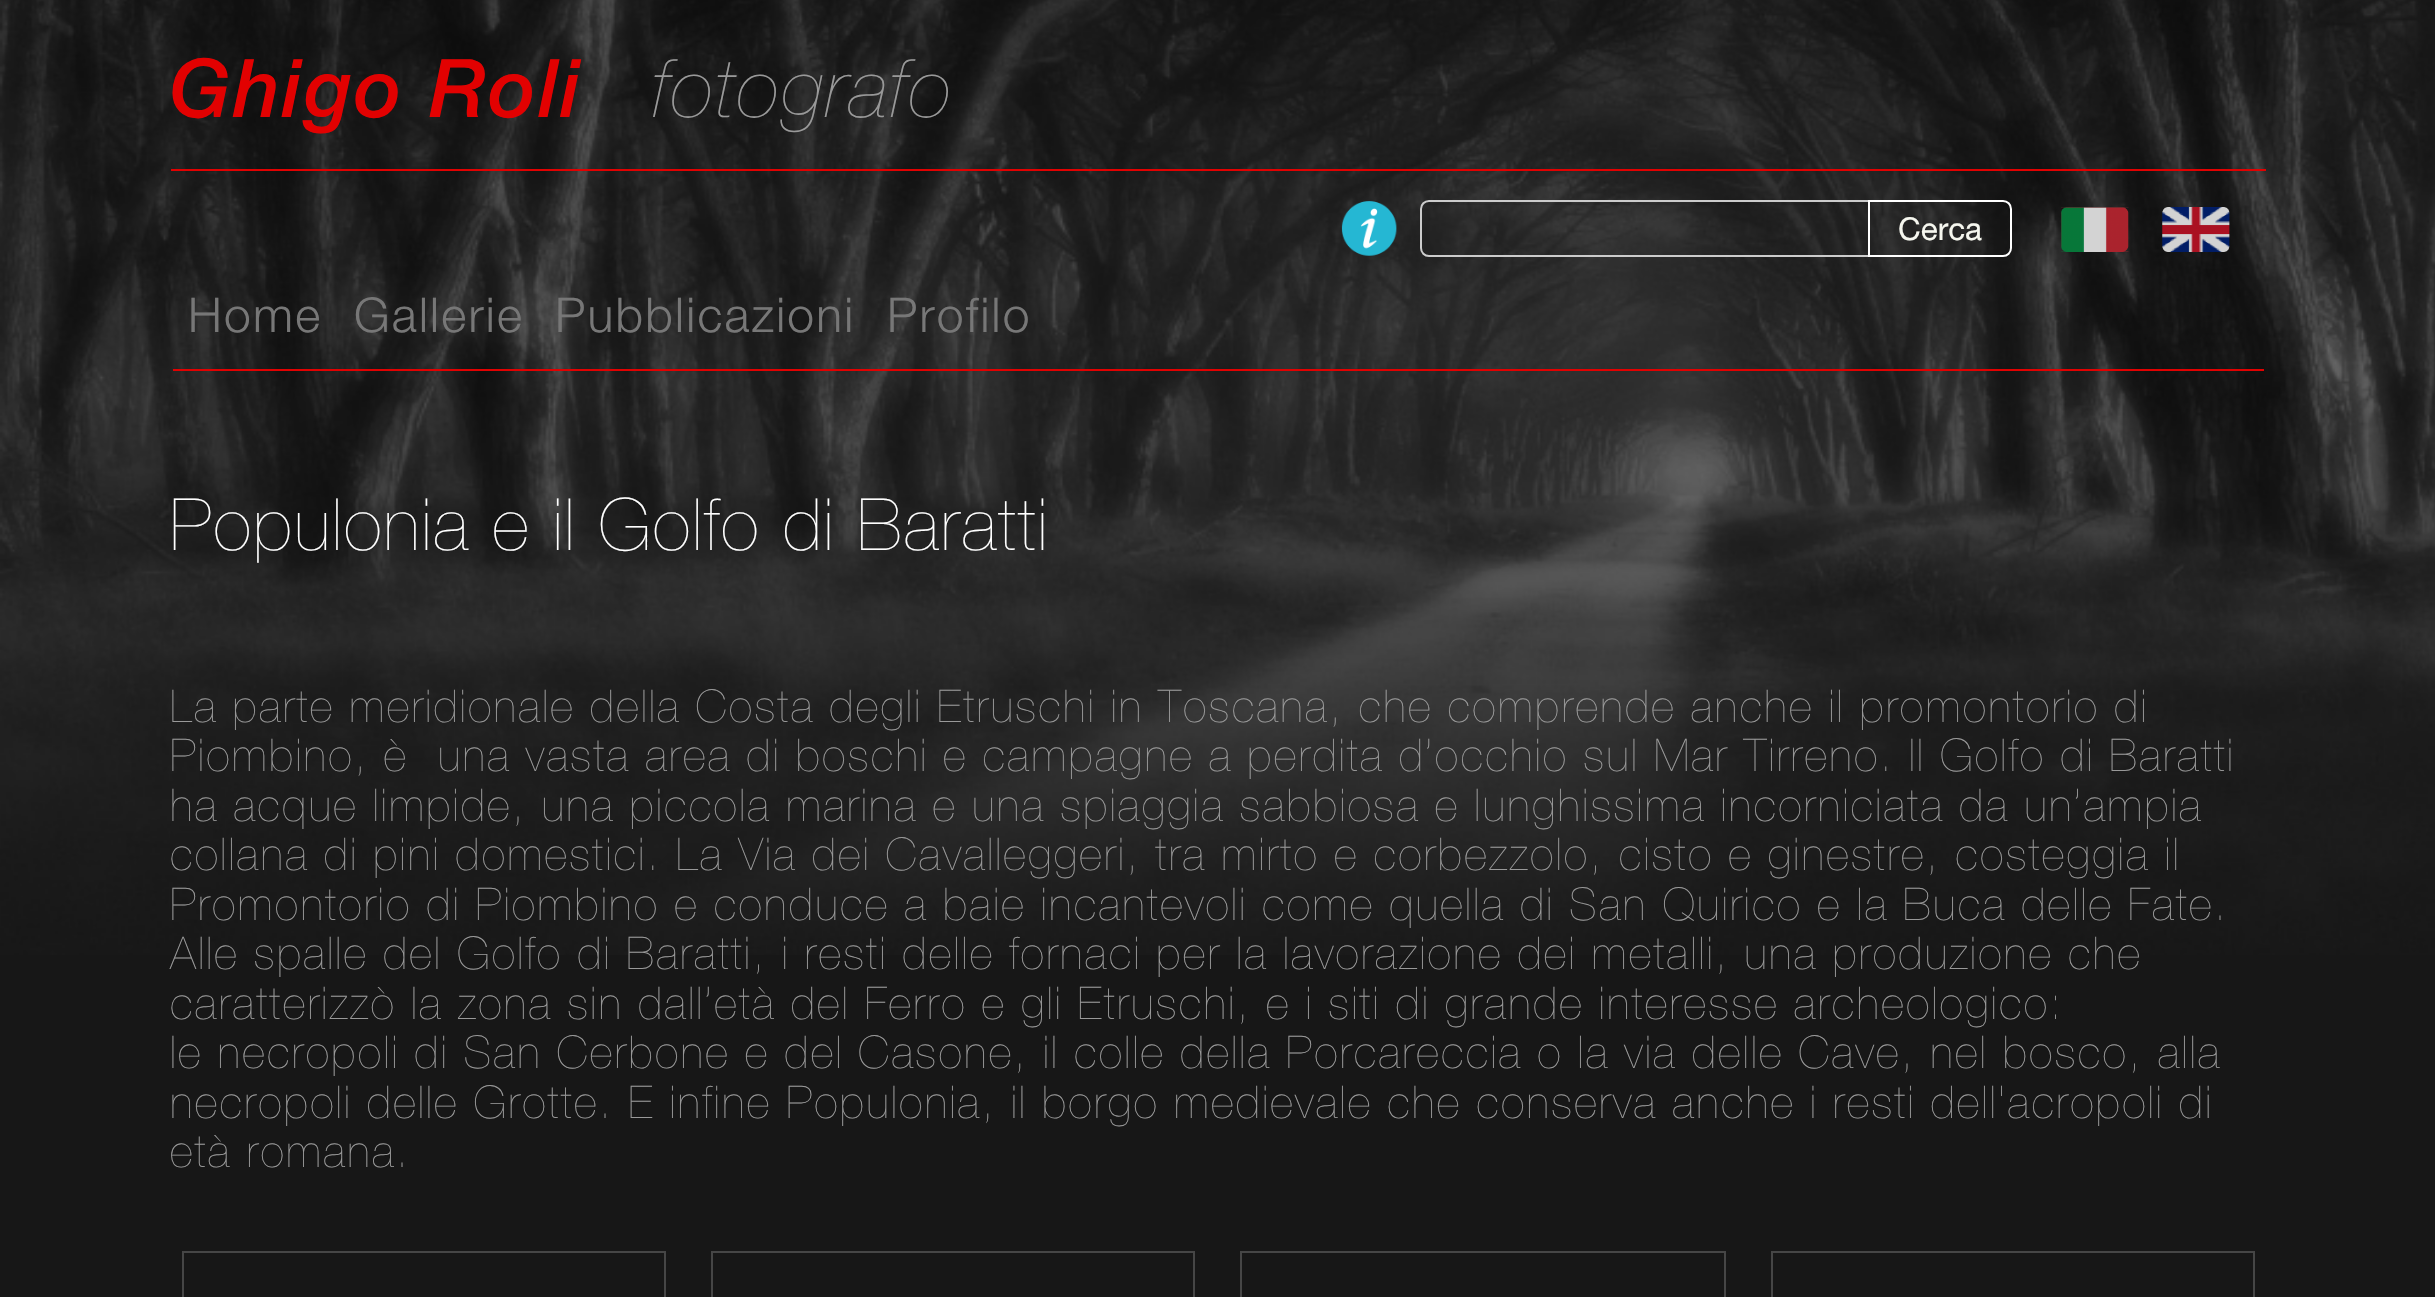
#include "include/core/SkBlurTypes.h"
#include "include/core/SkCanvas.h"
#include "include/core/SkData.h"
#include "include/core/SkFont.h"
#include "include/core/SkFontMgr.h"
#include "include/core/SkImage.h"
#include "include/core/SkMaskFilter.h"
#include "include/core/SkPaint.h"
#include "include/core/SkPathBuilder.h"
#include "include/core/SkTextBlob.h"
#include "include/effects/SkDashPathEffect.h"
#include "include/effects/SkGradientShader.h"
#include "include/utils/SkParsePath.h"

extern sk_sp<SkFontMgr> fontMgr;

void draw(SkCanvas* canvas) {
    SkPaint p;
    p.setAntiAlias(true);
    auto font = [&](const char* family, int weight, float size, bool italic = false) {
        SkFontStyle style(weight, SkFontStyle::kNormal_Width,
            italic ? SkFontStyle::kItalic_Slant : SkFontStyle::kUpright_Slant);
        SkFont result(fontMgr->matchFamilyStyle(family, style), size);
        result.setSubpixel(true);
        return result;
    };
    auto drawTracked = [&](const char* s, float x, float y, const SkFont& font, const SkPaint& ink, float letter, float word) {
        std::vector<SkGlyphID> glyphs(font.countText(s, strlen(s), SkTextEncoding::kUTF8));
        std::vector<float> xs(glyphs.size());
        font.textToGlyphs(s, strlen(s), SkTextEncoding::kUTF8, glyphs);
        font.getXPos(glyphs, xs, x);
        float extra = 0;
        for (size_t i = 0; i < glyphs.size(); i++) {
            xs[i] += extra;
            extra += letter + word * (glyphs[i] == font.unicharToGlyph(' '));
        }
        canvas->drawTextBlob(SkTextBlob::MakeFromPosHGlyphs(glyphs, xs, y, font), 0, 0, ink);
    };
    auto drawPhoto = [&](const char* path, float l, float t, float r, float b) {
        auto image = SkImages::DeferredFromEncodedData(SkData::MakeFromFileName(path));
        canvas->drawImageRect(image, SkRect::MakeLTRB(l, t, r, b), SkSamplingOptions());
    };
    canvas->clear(0xFF171717);
    drawPhoto("media/1.png", 0, 0, 2435, 955);
    auto font1 = font("Helvetica Neue", 500, 81, true);
    p.setColor(0xFFE20101);
    drawTracked("Ghigo Roli", 170, 117, font1, p, 2.25f, 0);
    auto font2 = font("Helvetica Neue", 300, 81, true);
    p.setColor(0xFF999999);
    drawTracked("fotografo", 653, 117, font2, p, 2.25f, 0);
    p.setColor(0xFFE20101);
    canvas->drawRect(SkRect::MakeLTRB(171, 169, 2266, 171), p);
    drawPhoto("media/2.png", 1341, 201, 1397, 256);
    p.setColor(0x12000000);
    canvas->drawPath(SkPathBuilder().moveTo(1429, 205).lineTo(1868, 205).lineTo(1868, 203).lineTo(1429, 203).cubicTo(1425, 203, 1422, 206, 1422, 210).lineTo(1422, 212).cubicTo(1422, 208, 1425, 205, 1429, 205).close().detach(), p);
    p.setStyle(SkPaint::kStroke_Style);
    p.setStrokeWidth(2);
    p.setColor(0xFFCCCCCC);
    canvas->drawPath(SkPathBuilder().moveTo(1429, 201).lineTo(1869, 201).lineTo(1869, 256).lineTo(1429, 256).cubicTo(1424.5f, 256, 1421, 252.5f, 1421, 248).lineTo(1421, 209).cubicTo(1421, 204.5f, 1424.5f, 201, 1429, 201).close().detach(), p);
    p.setColor(0xFFFFFFFF);
    canvas->drawPath(SkPathBuilder().moveTo(1869, 201).lineTo(2003, 201).cubicTo(2007.5f, 201, 2011, 204.5f, 2011, 209).lineTo(2011, 248).cubicTo(2011, 252.5f, 2007.5f, 256, 2003, 256).lineTo(1869, 256).close().detach(), p);
    auto font3 = font("Helvetica Neue", 400, 31.5f);
    p.setStyle(SkPaint::kFill_Style);
    p.setColor(0xFFF6F7EF);
    canvas->drawString("Cerca", 1898, 240, font3, p);
    drawPhoto("media/3.png", 2061, 207, 2129, 252);
    drawPhoto("media/4.png", 2162, 207, 2230, 252);
    auto font4 = font("Helvetica Neue", 300, 48);
    p.setColor(0xFF777777);
    {
        const struct { const char* s; float x, y; } items[] = {
            {"Home", 188, 332},
            {"Gallerie", 354, 332},
            {"Pubblicazioni", 555, 332},
            {"Profilo", 887, 332},
        };
        for (auto [s, x, y] : items) {
            drawTracked(s, x, y, font4, p, 2.25f, 0);
        }
    }
    p.setColor(0xFFE20101);
    canvas->drawRect(SkRect::MakeLTRB(173, 369, 2264, 371), p);
    auto font5 = font("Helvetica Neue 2", 300, 72);
    p.setColor(0xFFFFFFFF);
    drawTracked("Populonia e il Golfo di Baratti", 170, 550, font5, p, 2.25f, 0);
    auto font6 = font("Helvetica Neue 2", 300, 45);
    p.setColor(0xFF999999);
    {
        const struct { const char* s; float x, y; } items[] = {
            {"La parte meridionale della Costa degli Etruschi in Toscana, che comprende anche il promontorio di", 170, 722},
            {"Piombino, è  una vasta area di boschi e campagne a perdita d’occhio sul Mar Tirreno. Il Golfo di Baratti", 170, 771},
            {"ha acque limpide, una piccola marina e una spiaggia sabbiosa e lunghissima incorniciata da un’ampia", 170, 821},
            {"collana di pini domestici. La Via dei Cavalleggeri, tra mirto e corbezzolo, cisto e ginestre, costeggia il", 170, 870},
            {"Promontorio di Piombino e conduce a baie incantevoli come quella di San Quirico e la Buca delle Fate.", 170, 920},
            {"Alle spalle del Golfo di Baratti, i resti delle fornaci per la lavorazione dei metalli, una produzione che", 170, 969},
            {"caratterizzò la zona sin dall’età del Ferro e gli Etruschi, e i siti di grande interesse archeologico:", 170, 1019},
            {"le necropoli di San Cerbone e del Casone, il colle della Porcareccia o la via delle Cave, nel bosco, alla", 170, 1068},
            {"necropoli delle Grotte. E infine Populonia, il borgo medievale che conserva anche i resti dell'acropoli di", 170, 1118},
            {"età romana.", 170, 1167},
        };
        for (auto [s, x, y] : items) {
            drawTracked(s, x, y, font6, p, 2.25f, 0);
        }
    }
    p.setStyle(SkPaint::kStroke_Style);
    p.setColor(0xFF464646);
    canvas->drawRect(SkRect::MakeLTRB(183, 1252, 665, 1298), p);
    canvas->drawRect(SkRect::MakeLTRB(712, 1252, 1194, 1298), p);
    canvas->drawRect(SkRect::MakeLTRB(1241, 1252, 1725, 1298), p);
    canvas->drawRect(SkRect::MakeLTRB(1772, 1252, 2254, 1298), p);
}
